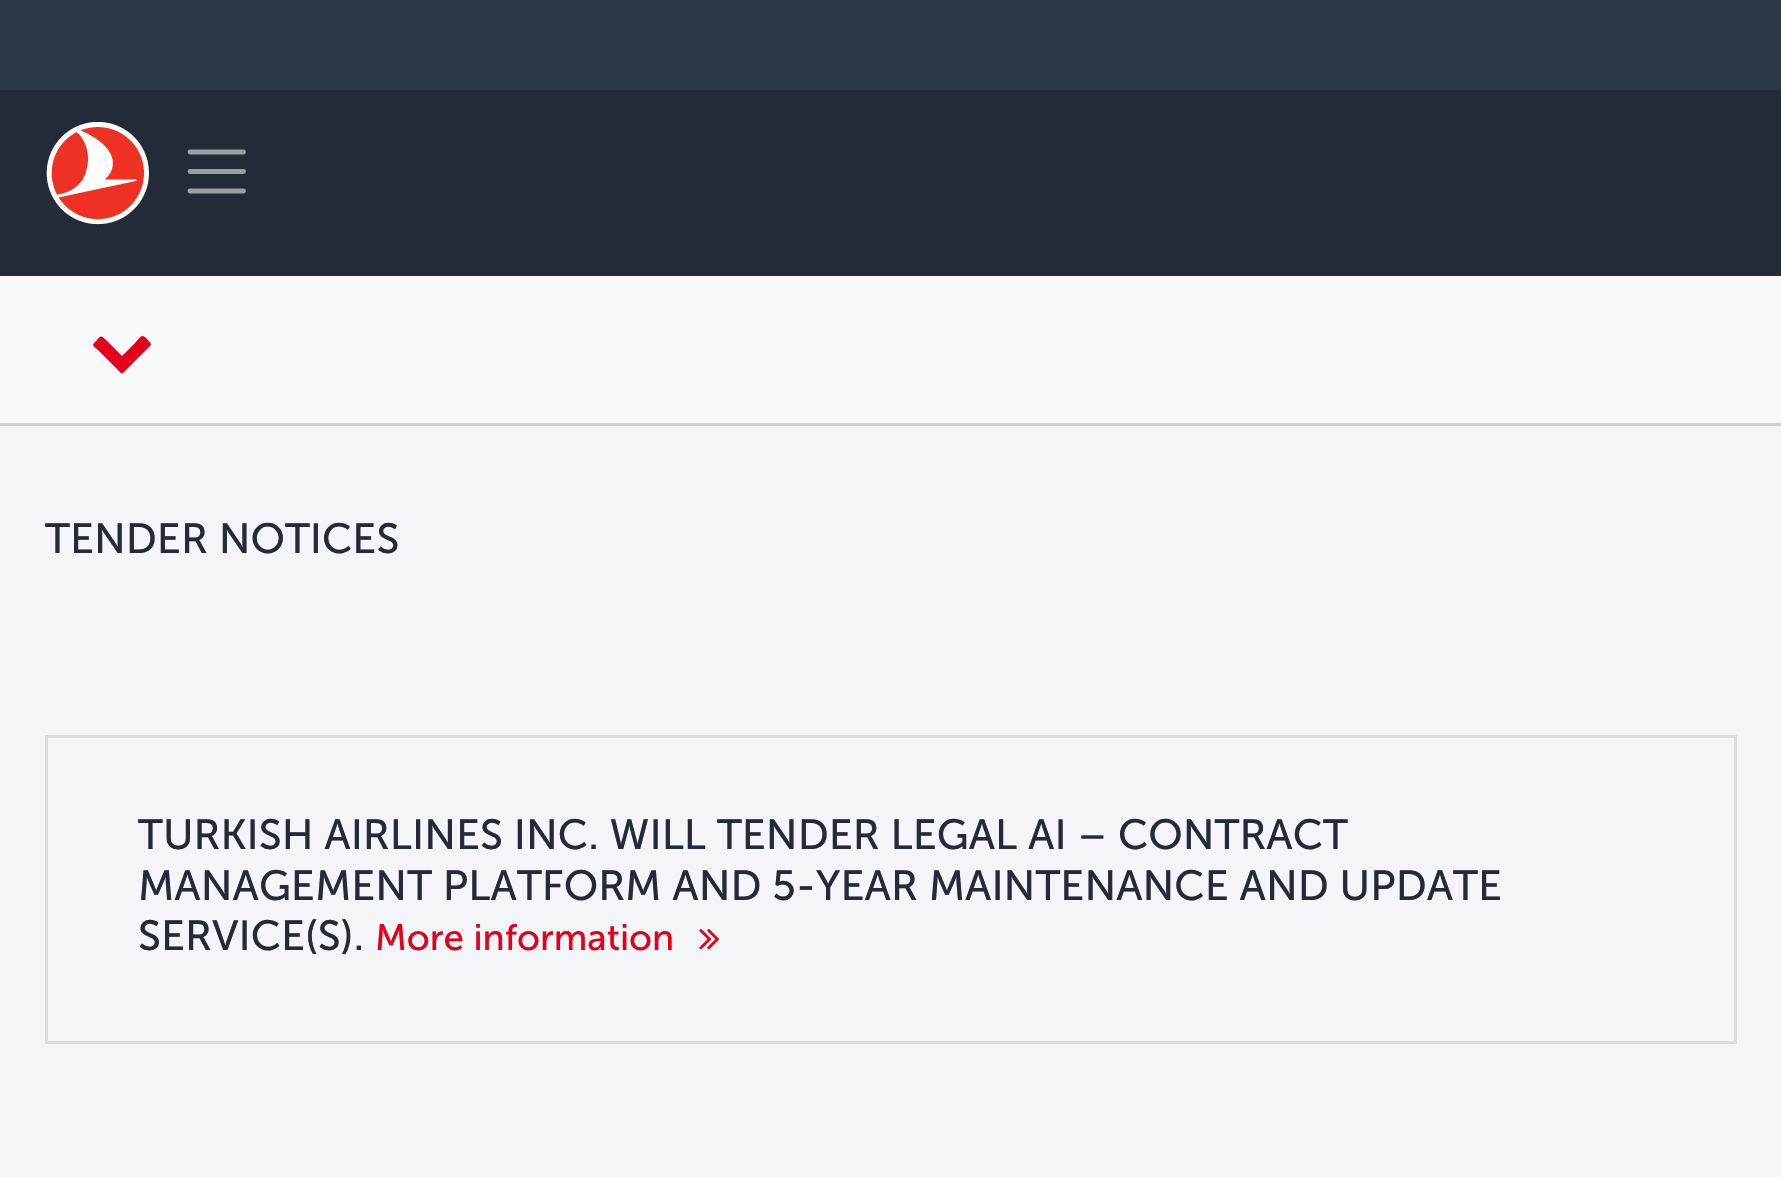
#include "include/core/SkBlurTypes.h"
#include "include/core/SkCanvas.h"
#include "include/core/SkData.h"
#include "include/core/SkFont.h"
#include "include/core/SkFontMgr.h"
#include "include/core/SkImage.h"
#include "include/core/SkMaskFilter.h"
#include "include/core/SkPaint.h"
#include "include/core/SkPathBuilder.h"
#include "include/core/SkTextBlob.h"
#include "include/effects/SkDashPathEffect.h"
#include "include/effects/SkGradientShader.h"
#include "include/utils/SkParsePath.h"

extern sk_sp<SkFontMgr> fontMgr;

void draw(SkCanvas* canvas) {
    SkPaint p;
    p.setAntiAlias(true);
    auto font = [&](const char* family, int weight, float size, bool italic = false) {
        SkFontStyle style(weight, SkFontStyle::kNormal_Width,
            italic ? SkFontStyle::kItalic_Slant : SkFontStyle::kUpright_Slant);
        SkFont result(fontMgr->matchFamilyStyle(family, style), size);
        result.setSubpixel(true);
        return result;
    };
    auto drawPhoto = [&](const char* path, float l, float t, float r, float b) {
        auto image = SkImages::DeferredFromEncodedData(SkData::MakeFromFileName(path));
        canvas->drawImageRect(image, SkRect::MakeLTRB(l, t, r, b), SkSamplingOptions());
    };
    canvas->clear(0xFFF4F5F8);
    p.setColor(0xFF232B38);
    canvas->drawRect(SkRect::MakeLTRB(0, 90, 1781, 276), p);
    p.setColor(0xFF2B3947);
    canvas->drawRect(SkRect::MakeLTRB(0, 0, 1781, 90), p);
    drawPhoto("media/1.png", 46, 122, 149, 225);
    p.setStyle(SkPaint::kStroke_Style);
    p.setStrokeWidth(4.9f);
    p.setStrokeCap(SkPaint::kRound_Cap);
    p.setColor(0xFF9CA0A5);
    canvas->drawPath(SkPathBuilder().moveTo(190, 152).lineTo(243.5f, 152).moveTo(190, 171.5f).lineTo(243.5f, 171.5f).moveTo(190, 191).lineTo(243.5f, 191).detach(), p);
    p.setStyle(SkPaint::kFill_Style);
    p.setColor(0xFFCFCFCF);
    canvas->drawRect(SkRect::MakeLTRB(0, 423, 1781, 426), p);
    p.setColor(0xFFF8F9FA);
    canvas->drawRect(SkRect::MakeLTRB(0, 276, 1781, 423), p);
    p.setColor(0xFFE2001B);
    canvas->drawPath(SkPathBuilder().moveTo(150, 346).lineTo(128, 368).cubicTo(121, 375, 123, 375, 116, 368).lineTo(98, 350).cubicTo(94, 346, 91, 346, 95, 342).cubicTo(101, 336, 100, 334, 106, 340).lineTo(122, 356).lineTo(135, 343).cubicTo(141, 337, 141, 333, 147, 339).cubicTo(148, 341, 153, 344, 150, 346).close().detach(), p);
    auto font1 = font("Museo Sans", 400, 42);
    p.setColor(0xFF232B38);
    canvas->drawString("TENDER NOTICES", 45, 553, font1, p);
    p.setStyle(SkPaint::kStroke_Style);
    p.setStrokeWidth(3);
    p.setStrokeCap(SkPaint::kButt_Cap);
    p.setColor(0xFFDDDDDD);
    canvas->drawRect(SkRect::MakeLTRB(46.5f, 736.5f, 1735.5f, 1042.5f), p);
    p.setStyle(SkPaint::kFill_Style);
    p.setColor(0xFF232B38);
    {
        const struct { const char* s; float x, y; } items[] = {
            {"TURKISH AIRLINES INC. WILL TENDER LEGAL AI – CONTRACT", 138, 849},
            {"MANAGEMENT PLATFORM AND 5-YEAR MAINTENANCE AND UPDATE", 138, 900},
            {"SERVICE(S).", 138, 950},
        };
        for (auto [s, x, y] : items) {
            canvas->drawString(s, x, y, font1, p);
        }
    }
    auto font2 = font("Museo Sans", 400, 36.75f);
    p.setColor(0xFFE2001B);
    canvas->drawString("More information", 375, 950, font2, p);
    drawPhoto("media/2.png", 699, 929, 719, 950);
}
